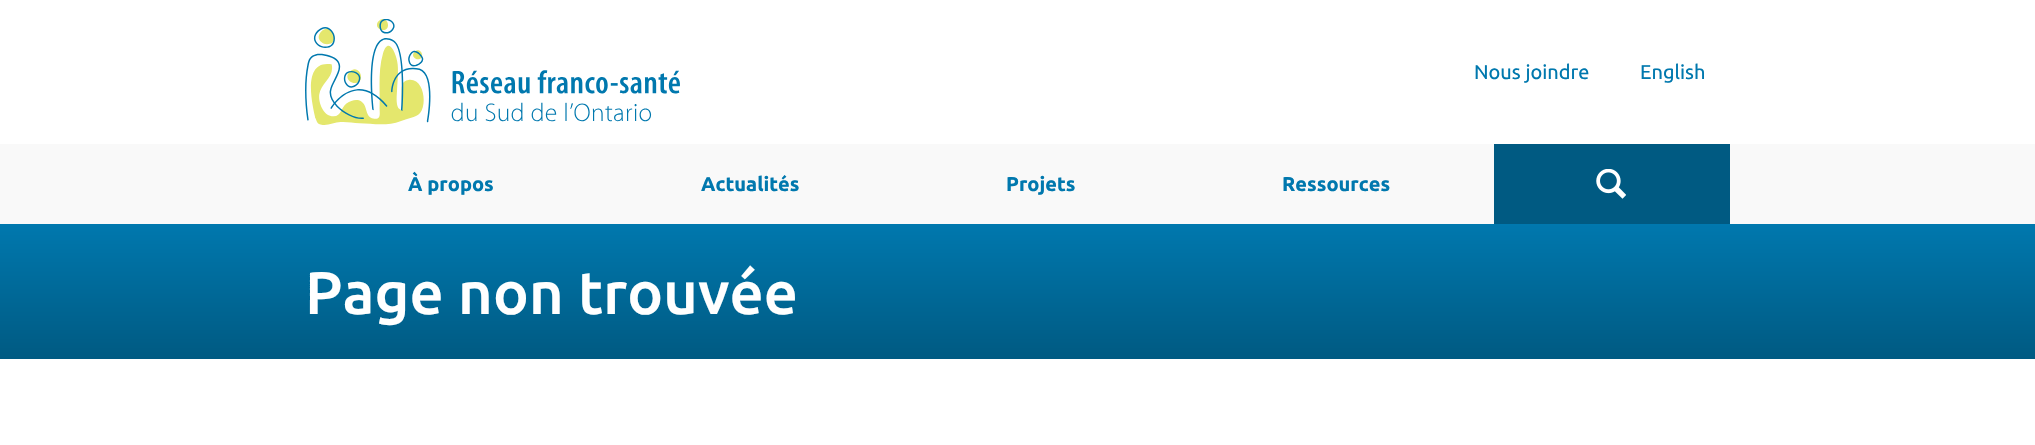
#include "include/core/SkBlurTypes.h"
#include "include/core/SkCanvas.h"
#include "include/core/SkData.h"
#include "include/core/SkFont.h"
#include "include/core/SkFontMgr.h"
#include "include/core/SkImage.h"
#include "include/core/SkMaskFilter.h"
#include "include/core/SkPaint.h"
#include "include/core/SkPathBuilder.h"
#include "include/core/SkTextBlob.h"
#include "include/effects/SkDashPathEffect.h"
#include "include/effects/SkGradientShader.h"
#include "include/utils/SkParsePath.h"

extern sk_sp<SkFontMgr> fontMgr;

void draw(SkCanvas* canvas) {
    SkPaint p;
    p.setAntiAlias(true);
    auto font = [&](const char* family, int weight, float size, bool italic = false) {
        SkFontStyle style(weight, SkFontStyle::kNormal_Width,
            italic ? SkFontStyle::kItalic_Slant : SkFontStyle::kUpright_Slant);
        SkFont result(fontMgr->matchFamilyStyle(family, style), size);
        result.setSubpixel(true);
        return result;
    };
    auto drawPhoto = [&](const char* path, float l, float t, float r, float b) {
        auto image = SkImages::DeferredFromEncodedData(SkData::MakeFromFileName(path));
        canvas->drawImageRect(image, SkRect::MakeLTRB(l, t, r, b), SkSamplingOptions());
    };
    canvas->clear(0xFFFFFFFF);
    drawPhoto("media/1.png", 305, 19, 680, 125);
    auto font1 = font("Ubuntu", 400, 20);
    p.setColor(0xFF0078AE);
    canvas->drawString("Nous joindre", 1474, 79, font1, p);
    canvas->drawString("English", 1640, 79, font1, p);
    p.setColor(0xFFF9F9F9);
    canvas->drawRect(SkRect::MakeLTRB(0, 144, 2035, 224), p);
    auto font2 = font("Ubuntu", 700, 20);
    p.setColor(0xFF0078AE);
    {
        const struct { const char* s; float x, y; } items[] = {
            {"À propos", 408, 191},
            {"Actualités", 701, 191},
            {"Projets", 1006, 191},
            {"Ressources", 1282, 191},
        };
        for (auto [s, x, y] : items) {
            canvas->drawString(s, x, y, font2, p);
        }
    }
    p.setColor(0xFF005A82);
    canvas->drawRect(SkRect::MakeLTRB(1494, 144, 1730, 224), p);
    drawPhoto("media/2.png", 1596, 169, 1626, 199);
    {
        const SkColor colors[] = {0xFF0078AE, 0xFF005A82};
        const float stops[] = {0, 1};
        const SkPoint ends[] = {{1018, 224}, {1018, 359}};
        p.setShader(SkGradientShader::MakeLinear(ends, colors, stops, 2, SkTileMode::kClamp));
        p.setAlpha(255);
    }
    canvas->drawRect(SkRect::MakeLTRB(0, 224, 2035, 359), p);
    auto font3 = font("Ubuntu", 500, 60);
    p.setShader(nullptr);
    p.setColor(0xFFFFFFFF);
    canvas->drawString("Page non trouvée", 305, 314, font3, p);
}
